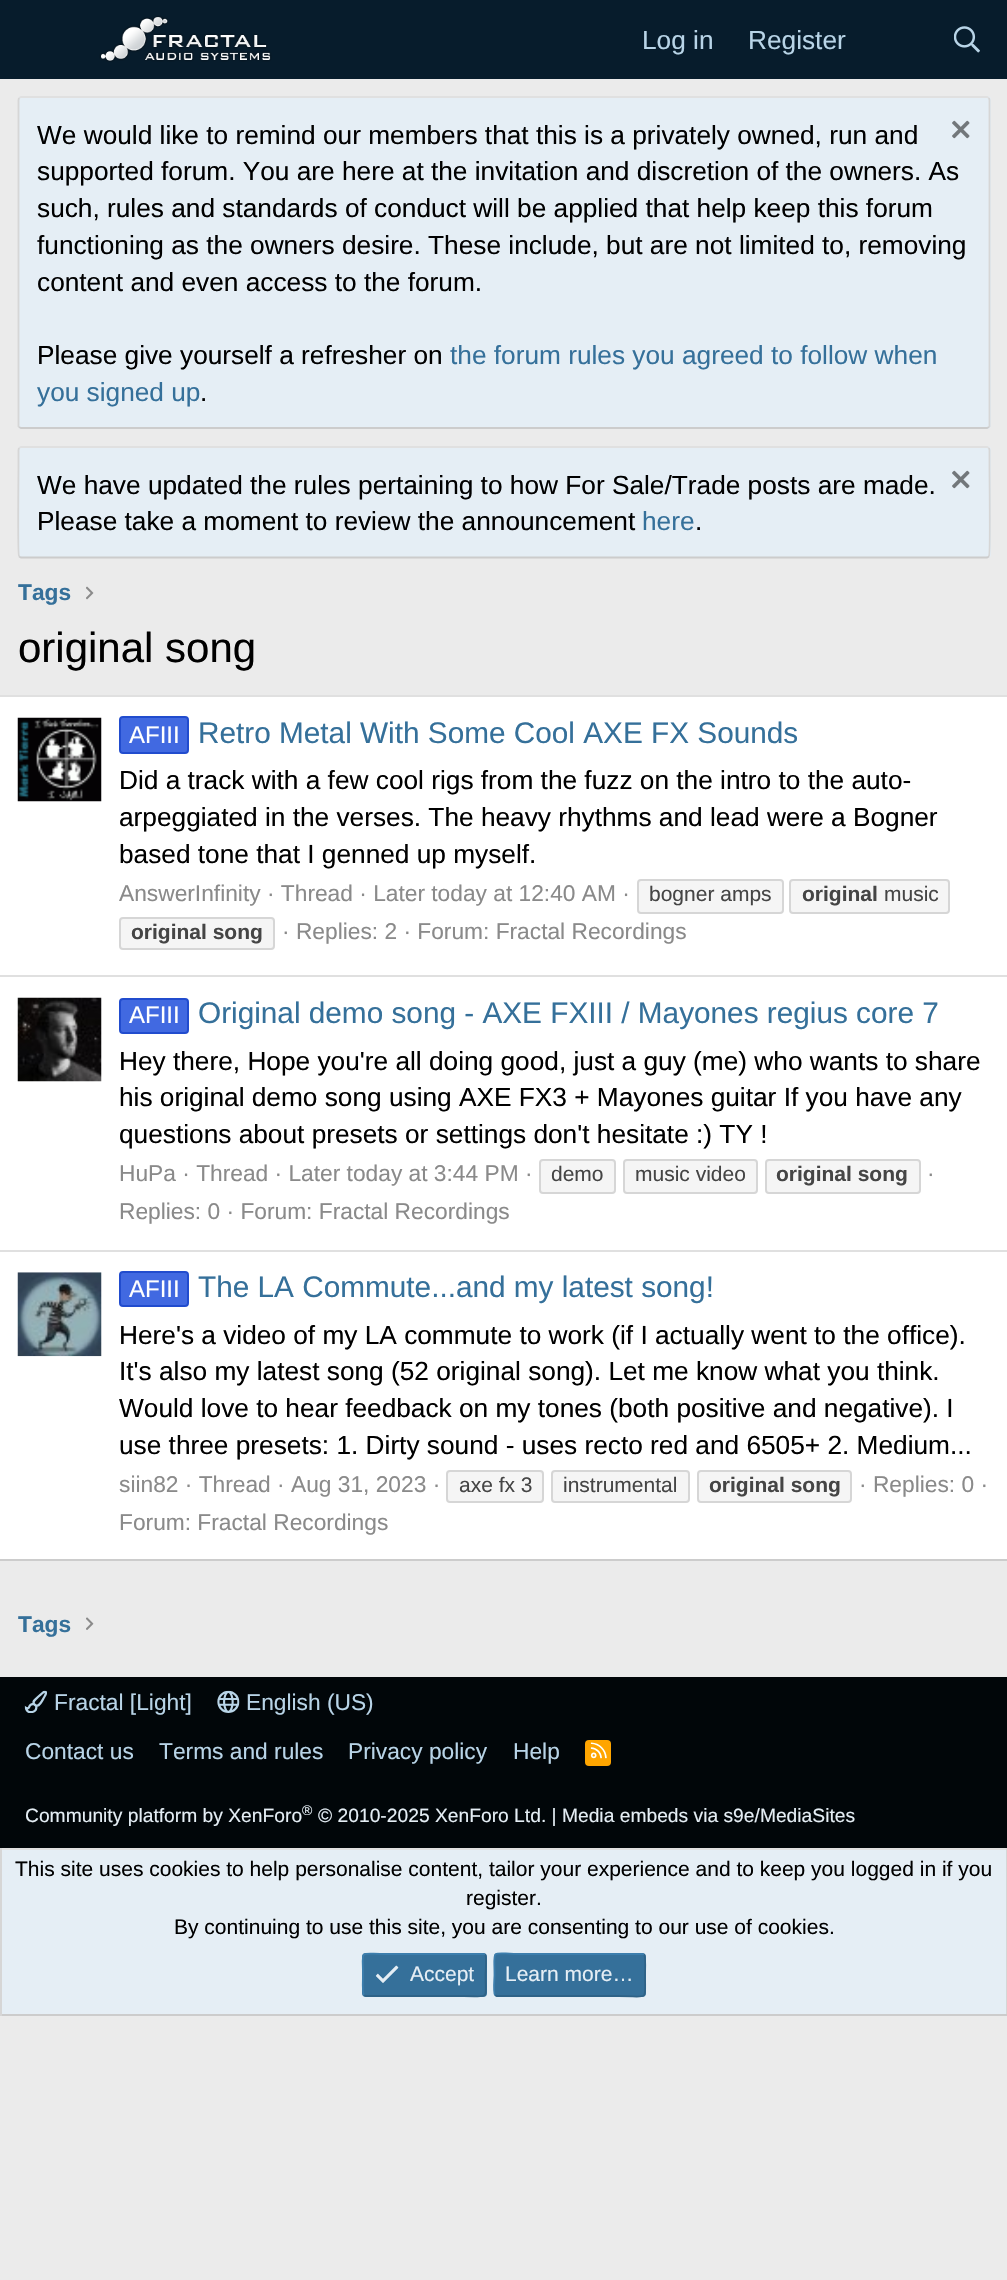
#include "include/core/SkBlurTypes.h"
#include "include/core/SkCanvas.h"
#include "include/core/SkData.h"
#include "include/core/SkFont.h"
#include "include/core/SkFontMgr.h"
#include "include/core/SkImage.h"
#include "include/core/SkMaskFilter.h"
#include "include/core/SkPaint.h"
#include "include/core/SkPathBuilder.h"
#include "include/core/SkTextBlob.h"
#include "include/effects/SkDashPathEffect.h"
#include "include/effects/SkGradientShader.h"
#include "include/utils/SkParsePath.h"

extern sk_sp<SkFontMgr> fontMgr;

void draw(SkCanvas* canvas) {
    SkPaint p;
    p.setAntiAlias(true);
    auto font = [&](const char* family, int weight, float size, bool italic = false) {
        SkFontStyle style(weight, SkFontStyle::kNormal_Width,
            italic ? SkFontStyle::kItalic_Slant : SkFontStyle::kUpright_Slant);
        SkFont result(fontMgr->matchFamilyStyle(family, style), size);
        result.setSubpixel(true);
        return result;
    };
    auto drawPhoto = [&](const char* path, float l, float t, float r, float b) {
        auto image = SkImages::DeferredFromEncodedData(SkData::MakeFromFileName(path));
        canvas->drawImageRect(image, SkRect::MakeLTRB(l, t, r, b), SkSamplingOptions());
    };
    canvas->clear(0xFFEBEBEB);
    p.setColor(0xFF071C2C);
    canvas->drawRect(SkRect::MakeLTRB(0, 0, 1007, 79), p);
    drawPhoto("media/1.png", 99, 15, 272, 62);
    auto font1 = font("Liberation Sans", 400, 26.25f);
    p.setColor(0xFFB8D4E7);
    canvas->drawString("Log in", 642, 49, font1, p);
    canvas->drawString("Register", 748, 49, font1, p);
    drawPhoto("media/2.png", 954, 26, 980, 53);
    p.setColor(0xFFE5EEF5);
    canvas->drawRoundRect(SkRect::MakeLTRB(18, 96, 991, 429), 4, 4, p);
    p.setStyle(SkPaint::kStroke_Style);
    p.setStrokeWidth(1.8f);
    p.setColor(0xFFE0E0E0);
    canvas->drawPath(SkPathBuilder().moveTo(19, 98).lineTo(21, 97).lineTo(987, 97).lineTo(989, 98).detach(), p);
    p.setColor(0xFFD6D6D6);
    canvas->drawPath(SkPathBuilder().moveTo(989, 98).lineTo(989.5f, 100).lineTo(989.5f, 426.5f).lineTo(989, 427).detach(), p);
    p.setColor(0xFFCCCCCC);
    canvas->drawPath(SkPathBuilder().moveTo(989, 427).lineTo(987, 428).lineTo(21, 428).lineTo(19, 427).detach(), p);
    p.setColor(0xFFD6D6D6);
    canvas->drawPath(SkPathBuilder().moveTo(19, 427).lineTo(18.5f, 426.5f).lineTo(18.5f, 154).lineTo(18.5f, 100).lineTo(19, 98).detach(), p);
    p.setStyle(SkPaint::kFill_Style);
    p.setColor(0xFF000000);
    canvas->drawString("We would like to remind our members that this is a privately owned, run and", 37, 144, font1, p);
    drawPhoto("media/3.png", 952, 120, 970, 139);
    {
        const struct { const char* s; float x, y; } items[] = {
            {"supported forum. You are here at the invitation and discretion of the owners. As", 37, 180},
            {"such, rules and standards of conduct will be applied that help keep this forum", 37, 217},
            {"functioning as the owners desire. These include, but are not limited to, removing", 37, 254},
            {"content and even access to the forum.", 37, 291},
            {"Please give yourself a refresher on", 37, 364},
        };
        for (auto [s, x, y] : items) {
            canvas->drawString(s, x, y, font1, p);
        }
    }
    p.setColor(0xFF35709A);
    canvas->drawString("the forum rules you agreed to follow when", 450, 364, font1, p);
    canvas->drawString("you signed up", 37, 401, font1, p);
    p.setColor(0xFF000000);
    canvas->drawString(".", 200, 401, font1, p);
    p.setColor(0xFFE5EEF5);
    canvas->drawRoundRect(SkRect::MakeLTRB(18, 446, 991, 558), 4, 4, p);
    p.setStyle(SkPaint::kStroke_Style);
    p.setColor(0xFFE0E0E0);
    canvas->drawPath(SkPathBuilder().moveTo(19, 448).lineTo(21, 447).lineTo(987, 447).lineTo(989, 448).detach(), p);
    p.setColor(0xFFD6D6D6);
    canvas->drawPath(SkPathBuilder().moveTo(989, 448).lineTo(989.5f, 450).lineTo(989.5f, 467).cubicTo(989.5f, 476.5f, 990.5f, 554, 989, 556).lineTo(989, 556.5f).detach(), p);
    p.setColor(0xFFCCCCCC);
    canvas->drawPath(SkPathBuilder().moveTo(989, 556.5f).lineTo(987, 557.5f).lineTo(21, 557.5f).lineTo(19, 556.5f).detach(), p);
    p.setColor(0xFFD6D6D6);
    canvas->drawPath(SkPathBuilder().moveTo(19, 556.5f).lineTo(19, 556).cubicTo(17.5f, 554, 18.5f, 476.5f, 18.5f, 467).lineTo(18.5f, 450).lineTo(19, 448).detach(), p);
    p.setStyle(SkPaint::kFill_Style);
    p.setColor(0xFF000000);
    canvas->drawString("We have updated the rules pertaining to how For Sale/Trade posts are made.", 37, 494, font1, p);
    drawPhoto("media/3.png", 952, 470, 970, 489);
    canvas->drawString("Please take a moment to review the announcement", 37, 530, font1, p);
    p.setColor(0xFF35709A);
    canvas->drawString("here", 642, 530, font1, p);
    p.setColor(0xFF000000);
    canvas->drawString(".", 695, 530, font1, p);
    auto font2 = font("Liberation Sans", 700, 22.75f);
    p.setColor(0xFF35709A);
    canvas->drawString("Tags", 18, 600, font2, p);
    drawPhoto("media/4.png", 86, 586, 94, 600);
    auto font3 = font("Liberation Sans", 400, 42);
    p.setColor(0xFF000000);
    canvas->drawString("original song", 18, 662, font3, p);
    {
        const struct { float l, t, r, b; SkColor color; } items[] = {
            {0, 697, 1007, 1559, 0xFFFFFFFF},
            {0, 695, 1007, 697, 0xFFE0E0E0},
            {0, 1559, 1007, 1561, 0xFFCCCCCC},
        };
        for (auto [l, t, r, b, color] : items) {
            p.setColor(color);
            canvas->drawRect(SkRect::MakeLTRB(l, t, r, b), p);
        }
    }
    drawPhoto("media/5.png", 17, 717, 102, 802);
    p.setColor(0xFF4169E1);
    canvas->drawRoundRect(SkRect::MakeLTRB(120, 717, 188, 753), 3, 3, p);
    p.setStyle(SkPaint::kStroke_Style);
    p.setStrokeWidth(2);
    p.setColor(0xFF214CCE);
    canvas->drawRoundRect(SkRect::MakeLTRB(120, 717, 188, 753), 3, 3, p);
    auto font4 = font("Liberation Sans", 400, 24);
    p.setStyle(SkPaint::kFill_Style);
    p.setColor(0xFFFFFFFF);
    canvas->drawString("AFIII", 129, 743, font4, p);
    auto font5 = font("Liberation Sans", 400, 29.75f);
    p.setColor(0xFF35709A);
    canvas->drawString("Retro Metal With Some Cool AXE FX Sounds", 198, 743, font5, p);
    p.setColor(0xFF000000);
    {
        const struct { const char* s; float x, y; } items[] = {
            {"Did a track with a few cool rigs from the fuzz on the intro to the auto-", 119, 789},
            {"arpeggiated in the verses. The heavy rhythms and lead were a Bogner", 119, 826},
            {"based tone that I genned up myself.", 119, 863},
        };
        for (auto [s, x, y] : items) {
            canvas->drawString(s, x, y, font1, p);
        }
    }
    auto font6 = font("Liberation Sans", 400, 22.75f);
    p.setColor(0xFF8A8A8A);
    canvas->drawString("AnswerInfinity · Thread · Later today at 12:40 AM ·", 119, 901, font6, p);
    p.setColor(0xFFF5F5F5);
    canvas->drawRoundRect(SkRect::MakeLTRB(638, 880, 783, 913), 3, 3, p);
    p.setStyle(SkPaint::kStroke_Style);
    p.setColor(0xFFD6D6D6);
    canvas->drawRoundRect(SkRect::MakeLTRB(638, 880, 783, 913), 3, 3, p);
    auto font7 = font("Liberation Sans", 400, 21);
    p.setStyle(SkPaint::kFill_Style);
    p.setColor(0xFF454545);
    canvas->drawString("bogner amps", 649, 901, font7, p);
    p.setColor(0xFFF5F5F5);
    canvas->drawRoundRect(SkRect::MakeLTRB(790, 880, 949, 913), 3, 3, p);
    p.setStyle(SkPaint::kStroke_Style);
    p.setColor(0xFFD6D6D6);
    canvas->drawRoundRect(SkRect::MakeLTRB(790, 880, 949, 913), 3, 3, p);
    auto font8 = font("Liberation Sans", 700, 21);
    p.setStyle(SkPaint::kFill_Style);
    p.setColor(0xFF454545);
    canvas->drawString("original", 802, 901, font8, p);
    canvas->drawString("music", 884, 901, font7, p);
    p.setColor(0xFFF5F5F5);
    canvas->drawRoundRect(SkRect::MakeLTRB(120, 918, 274, 949), 3, 3, p);
    p.setStyle(SkPaint::kStroke_Style);
    p.setColor(0xFFD6D6D6);
    canvas->drawRoundRect(SkRect::MakeLTRB(120, 918, 274, 949), 3, 3, p);
    p.setStyle(SkPaint::kFill_Style);
    p.setColor(0xFF454545);
    canvas->drawString("original song", 131, 939, font8, p);
    p.setColor(0xFF8A8A8A);
    canvas->drawString("· Replies: 2 · Forum: Fractal Recordings", 282, 939, font6, p);
    p.setColor(0xFFE0E0E0);
    canvas->drawRect(SkRect::MakeLTRB(0, 975, 1007, 977), p);
    drawPhoto("media/6.png", 17, 997, 102, 1082);
    p.setColor(0xFF4169E1);
    canvas->drawRoundRect(SkRect::MakeLTRB(120, 999, 188, 1033), 3, 3, p);
    p.setStyle(SkPaint::kStroke_Style);
    p.setColor(0xFF214CCE);
    canvas->drawRoundRect(SkRect::MakeLTRB(120, 999, 188, 1033), 3, 3, p);
    p.setStyle(SkPaint::kFill_Style);
    p.setColor(0xFFFFFFFF);
    canvas->drawString("AFIII", 129, 1023, font4, p);
    p.setColor(0xFF35709A);
    canvas->drawString("Original demo song - AXE FXIII / Mayones regius core 7", 198, 1023, font5, p);
    p.setColor(0xFF000000);
    {
        const struct { const char* s; float x, y; } items[] = {
            {"Hey there, Hope you're all doing good, just a guy (me) who wants to share", 119, 1070},
            {"his original demo song using AXE FX3 + Mayones guitar If you have any", 119, 1106},
            {"questions about presets or settings don't hesitate :) TY !", 119, 1143},
        };
        for (auto [s, x, y] : items) {
            canvas->drawString(s, x, y, font1, p);
        }
    }
    p.setColor(0xFF8A8A8A);
    canvas->drawString("HuPa · Thread · Later today at 3:44 PM ·", 119, 1181, font6, p);
    p.setColor(0xFFF5F5F5);
    canvas->drawRoundRect(SkRect::MakeLTRB(540, 1160, 615, 1193), 3, 3, p);
    p.setStyle(SkPaint::kStroke_Style);
    p.setColor(0xFFD6D6D6);
    canvas->drawRoundRect(SkRect::MakeLTRB(540, 1160, 615, 1193), 3, 3, p);
    p.setStyle(SkPaint::kFill_Style);
    p.setColor(0xFF454545);
    canvas->drawString("demo", 551, 1181, font7, p);
    p.setColor(0xFFF5F5F5);
    canvas->drawRoundRect(SkRect::MakeLTRB(624, 1160, 757, 1193), 3, 3, p);
    p.setStyle(SkPaint::kStroke_Style);
    p.setColor(0xFFD6D6D6);
    canvas->drawRoundRect(SkRect::MakeLTRB(624, 1160, 757, 1193), 3, 3, p);
    p.setStyle(SkPaint::kFill_Style);
    p.setColor(0xFF454545);
    canvas->drawString("music video", 635, 1181, font7, p);
    p.setColor(0xFFF5F5F5);
    canvas->drawRoundRect(SkRect::MakeLTRB(766, 1160, 920, 1193), 3, 3, p);
    p.setStyle(SkPaint::kStroke_Style);
    p.setColor(0xFFD6D6D6);
    canvas->drawRoundRect(SkRect::MakeLTRB(766, 1160, 920, 1193), 3, 3, p);
    p.setStyle(SkPaint::kFill_Style);
    p.setColor(0xFF454545);
    canvas->drawString("original song", 776, 1181, font8, p);
    p.setColor(0xFF8A8A8A);
    canvas->drawString("·", 927, 1181, font6, p);
    canvas->drawString("Replies: 0 · Forum: Fractal Recordings", 119, 1219, font6, p);
    p.setColor(0xFFE0E0E0);
    canvas->drawRect(SkRect::MakeLTRB(0, 1250, 1007, 1252), p);
    drawPhoto("media/7.png", 17, 1272, 102, 1357);
    p.setColor(0xFF4169E1);
    canvas->drawRoundRect(SkRect::MakeLTRB(120, 1272, 188, 1306), 3, 3, p);
    p.setStyle(SkPaint::kStroke_Style);
    p.setColor(0xFF214CCE);
    canvas->drawRoundRect(SkRect::MakeLTRB(120, 1272, 188, 1306), 3, 3, p);
    p.setStyle(SkPaint::kFill_Style);
    p.setColor(0xFFFFFFFF);
    canvas->drawString("AFIII", 129, 1297, font4, p);
    p.setColor(0xFF35709A);
    canvas->drawString("The LA Commute...and my latest song!", 198, 1297, font5, p);
    p.setColor(0xFF000000);
    {
        const struct { const char* s; float x, y; } items[] = {
            {"Here's a video of my LA commute to work (if I actually went to the office).", 119, 1344},
            {"It's also my latest song (52 original song). Let me know what you think.", 119, 1380},
            {"Would love to hear feedback on my tones (both positive and negative). I", 119, 1417},
            {"use three presets: 1. Dirty sound - uses recto red and 6505+ 2. Medium...", 119, 1454},
        };
        for (auto [s, x, y] : items) {
            canvas->drawString(s, x, y, font1, p);
        }
    }
    p.setColor(0xFF8A8A8A);
    canvas->drawString("siin82 · Thread · Aug 31, 2023 ·", 119, 1492, font6, p);
    p.setColor(0xFFF5F5F5);
    canvas->drawRoundRect(SkRect::MakeLTRB(447, 1471, 543, 1502), 3, 3, p);
    p.setStyle(SkPaint::kStroke_Style);
    p.setColor(0xFFD6D6D6);
    canvas->drawRoundRect(SkRect::MakeLTRB(447, 1471, 543, 1502), 3, 3, p);
    p.setStyle(SkPaint::kFill_Style);
    p.setColor(0xFF454545);
    canvas->drawString("axe fx 3", 459, 1492, font7, p);
    p.setColor(0xFFF5F5F5);
    canvas->drawRoundRect(SkRect::MakeLTRB(552, 1471, 689, 1502), 3, 3, p);
    p.setStyle(SkPaint::kStroke_Style);
    p.setColor(0xFFD6D6D6);
    canvas->drawRoundRect(SkRect::MakeLTRB(552, 1471, 689, 1502), 3, 3, p);
    p.setStyle(SkPaint::kFill_Style);
    p.setColor(0xFF454545);
    canvas->drawString("instrumental", 563, 1492, font7, p);
    p.setColor(0xFFF5F5F5);
    canvas->drawRoundRect(SkRect::MakeLTRB(698, 1471, 851, 1502), 3, 3, p);
    p.setStyle(SkPaint::kStroke_Style);
    p.setColor(0xFFD6D6D6);
    canvas->drawRoundRect(SkRect::MakeLTRB(698, 1471, 851, 1502), 3, 3, p);
    p.setStyle(SkPaint::kFill_Style);
    p.setColor(0xFF454545);
    canvas->drawString("original song", 709, 1492, font8, p);
    p.setColor(0xFF8A8A8A);
    canvas->drawString("· Replies: 0 ·", 859, 1492, font6, p);
    canvas->drawString("Forum: Fractal Recordings", 119, 1530, font6, p);
    p.setColor(0xFF35709A);
    canvas->drawString("Tags", 18, 1632, font2, p);
    drawPhoto("media/8.png", 86, 1617, 94, 1630);
    p.setColor(0xFF010609);
    canvas->drawRect(SkRect::MakeLTRB(0, 1677, 1007, 1848), p);
    drawPhoto("media/9.png", 24, 1690, 47, 1713);
    p.setColor(0xFFB8D4E7);
    canvas->drawString("Fractal [Light]", 54, 1710, font6, p);
    drawPhoto("media/10.png", 217, 1690, 240, 1713);
    {
        const struct { const char* s; float x, y; } items[] = {
            {"English (US)", 246, 1710},
            {"Contact us", 25, 1759},
            {"Terms and rules", 159, 1759},
            {"Privacy policy", 348, 1759},
            {"Help", 513, 1759},
        };
        for (auto [s, x, y] : items) {
            canvas->drawString(s, x, y, font6, p);
        }
    }
    p.setColor(0xFFFFA500);
    canvas->drawRoundRect(SkRect::MakeLTRB(585, 1740, 611, 1766), 4, 4, p);
    drawPhoto("media/11.png", 590, 1742, 607, 1759);
    auto font9 = font("Liberation Sans", 400, 19.25f);
    p.setColor(0xFFE5EEF5);
    canvas->drawString("Community platform by XenForo", 25, 1822, font9, p);
    auto font10 = font("Liberation Sans", 400, 14);
    canvas->drawString("®", 302, 1815, font10, p);
    canvas->drawString("© 2010-2025 XenForo Ltd. | Media embeds via s9e/MediaSites", 318, 1822, font9, p);
    {
        const struct { float l, t, r, b; SkColor color; } items[] = {
            {2, 1850, 1006, 2014, 0xFFE5EEF5},
            {0, 1848, 1007, 1850, 0xFFE0E0E0},
            {1006, 1848, 1007, 2016, 0xFFD6D6D6},
            {0, 2014, 1007, 2016, 0xFFCCCCCC},
            {0, 1848, 2, 2016, 0xFFD6D6D6},
        };
        for (auto [l, t, r, b, color] : items) {
            p.setColor(color);
            canvas->drawRect(SkRect::MakeLTRB(l, t, r, b), p);
        }
    }
    p.setColor(0xFF000000);
    {
        const struct { const char* s; float x, y; } items[] = {
            {"This site uses cookies to help personalise content, tailor your experience and to keep you logged in if you", 15, 1876},
            {"register.", 466, 1905},
            {"By continuing to use this site, you are consenting to our use of cookies.", 174, 1934},
        };
        for (auto [s, x, y] : items) {
            canvas->drawString(s, x, y, font7, p);
        }
    }
    p.setColor(0xFF35709A);
    canvas->drawRoundRect(SkRect::MakeLTRB(362, 1953, 487, 1997), 4, 4, p);
    p.setStyle(SkPaint::kStroke_Style);
    p.setStrokeWidth(1.8f);
    p.setColor(0xFF2E6287);
    canvas->drawPath(SkPathBuilder().moveTo(485, 1954.5f).cubicTo(487, 1956.5f, 485.5f, 1971.5f, 485.5f, 1975).cubicTo(485.5f, 2001, 490.5f, 1996, 463.5f, 1996).lineTo(366, 1996).lineTo(364, 1995).detach(), p);
    p.setColor(0xFF3C7EAD);
    canvas->drawPath(SkPathBuilder().moveTo(364, 1995).cubicTo(362, 1993, 363, 1978, 363, 1975).cubicTo(363, 1948.5f, 358, 1954, 385.5f, 1954).lineTo(483, 1954).lineTo(485, 1954.5f).detach(), p);
    drawPhoto("media/12.png", 375, 1965, 399, 1983);
    p.setStyle(SkPaint::kFill_Style);
    p.setColor(0xFFE5EEF5);
    canvas->drawString("Accept", 410, 1981, font7, p);
    p.setColor(0xFF35709A);
    canvas->drawRoundRect(SkRect::MakeLTRB(494, 1953, 646, 1997), 4, 4, p);
    p.setStyle(SkPaint::kStroke_Style);
    p.setColor(0xFF2E6287);
    canvas->drawPath(SkPathBuilder().moveTo(644, 1954.5f).cubicTo(646, 1956.5f, 645, 1971.5f, 645, 1975).cubicTo(645, 2002.5f, 649.5f, 1996, 618, 1996).lineTo(497, 1996).lineTo(495, 1995).detach(), p);
    p.setColor(0xFF3C7EAD);
    canvas->drawPath(SkPathBuilder().moveTo(495, 1995).cubicTo(493, 1993, 494.5f, 1978, 494.5f, 1975).cubicTo(494.5f, 1947, 489.5f, 1954, 521, 1954).lineTo(642, 1954).lineTo(644, 1954.5f).detach(), p);
    p.setStyle(SkPaint::kFill_Style);
    p.setColor(0xFFE5EEF5);
    canvas->drawString("Learn more…", 505, 1981, font7, p);
}
